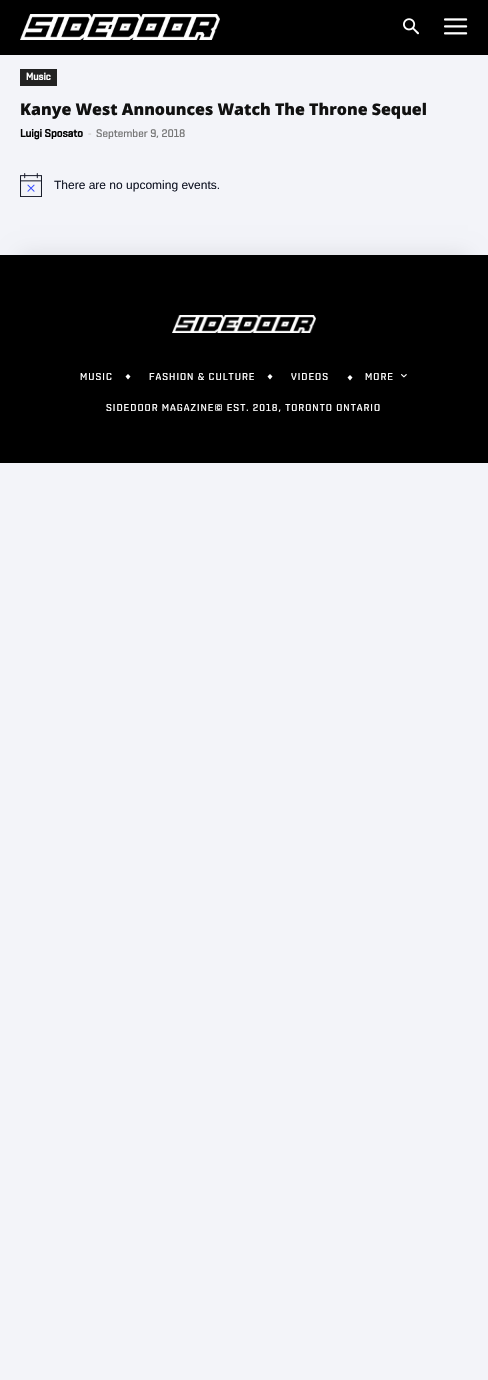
#include "include/core/SkBlurTypes.h"
#include "include/core/SkCanvas.h"
#include "include/core/SkData.h"
#include "include/core/SkFont.h"
#include "include/core/SkFontMgr.h"
#include "include/core/SkImage.h"
#include "include/core/SkMaskFilter.h"
#include "include/core/SkPaint.h"
#include "include/core/SkPathBuilder.h"
#include "include/core/SkTextBlob.h"
#include "include/effects/SkDashPathEffect.h"
#include "include/effects/SkGradientShader.h"
#include "include/utils/SkParsePath.h"

extern sk_sp<SkFontMgr> fontMgr;

void draw(SkCanvas* canvas) {
    SkPaint p;
    p.setAntiAlias(true);
    auto font = [&](const char* family, int weight, float size, bool italic = false) {
        SkFontStyle style(weight, SkFontStyle::kNormal_Width,
            italic ? SkFontStyle::kItalic_Slant : SkFontStyle::kUpright_Slant);
        SkFont result(fontMgr->matchFamilyStyle(family, style), size);
        result.setSubpixel(true);
        return result;
    };
    auto drawTracked = [&](const char* s, float x, float y, const SkFont& font, const SkPaint& ink, float letter, float word) {
        std::vector<SkGlyphID> glyphs(font.countText(s, strlen(s), SkTextEncoding::kUTF8));
        std::vector<float> xs(glyphs.size());
        font.textToGlyphs(s, strlen(s), SkTextEncoding::kUTF8, glyphs);
        font.getXPos(glyphs, xs, x);
        float extra = 0;
        for (size_t i = 0; i < glyphs.size(); i++) {
            xs[i] += extra;
            extra += letter + word * (glyphs[i] == font.unicharToGlyph(' '));
        }
        canvas->drawTextBlob(SkTextBlob::MakeFromPosHGlyphs(glyphs, xs, y, font), 0, 0, ink);
    };
    auto drawPhoto = [&](const char* path, float l, float t, float r, float b) {
        auto image = SkImages::DeferredFromEncodedData(SkData::MakeFromFileName(path));
        canvas->drawImageRect(image, SkRect::MakeLTRB(l, t, r, b), SkSamplingOptions());
    };
    canvas->clear(0xFFF3F4F9);
    p.setColor(0xFF000000);
    canvas->drawRect(SkRect::MakeLTRB(0, 0, 488, 55), p);
    drawPhoto("media/1.png", 20, 14, 220, 40);
    drawPhoto("media/2.png", 403, 18, 419, 35);
    drawPhoto("media/3.png", 444, 18, 468, 35);
    p.setColor(0xFF222222);
    canvas->drawRect(SkRect::MakeLTRB(20, 69, 57, 86), p);
    auto font1 = font("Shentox", 700, 10);
    p.setColor(0xFFFFFFFF);
    canvas->drawString("Music", 26, 80, font1, p);
    auto font2 = font("Open Sans", 800, 16);
    p.setColor(0xFF111111);
    canvas->drawString("Kanye West Announces Watch The Throne Sequel", 20, 115, font2, p);
    auto font3 = font("Shentox", 700, 11);
    p.setColor(0xFF000000);
    canvas->drawString("Luigi Sposato", 20, 137, font3, p);
    auto font4 = font("Open Sans", 400, 11);
    p.setColor(0xFFCCCCCC);
    canvas->drawString("-", 88, 137, font4, p);
    auto font5 = font("Shentox", 500, 11);
    p.setColor(0xFF767676);
    canvas->drawString("September 9, 2018", 96, 137, font5, p);
    drawPhoto("media/4.png", 20, 173, 42, 197);
    auto font6 = font("Liberation Sans", 400, 12);
    p.setColor(0xFF141827);
    canvas->drawString("There are no upcoming events.", 54, 189, font6, p);
    canvas->save();
    canvas->clipRect(SkRect::MakeLTRB(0, 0, 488, 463));
    p.setColor(0x1A000000);
    p.setMaskFilter(SkMaskFilter::MakeBlur(kNormal_SkBlurStyle, 10));
    canvas->drawRect(SkRect::MakeLTRB(20, 255, 468, 463), p);
    p.setMaskFilter(nullptr);
    canvas->restore();
    p.setColor(0xFF000000);
    canvas->drawRect(SkRect::MakeLTRB(0, 255, 488, 463), p);
    drawPhoto("media/5.png", 172, 315, 316, 333);
    auto font7 = font("Shentox", 500, 10);
    p.setColor(0xFFFFFFFF);
    drawTracked("MUSIC", 80, 380, font7, p, 1, 0);
    canvas->drawPath(SkPathBuilder().moveTo(130.5f, 376.5f).lineTo(128, 379.5f).lineTo(125.5f, 376.5f).lineTo(128, 374).close().detach(), p);
    drawTracked("FASHION & CULTURE", 149, 380, font7, p, 1, 0);
    canvas->drawPath(SkPathBuilder().moveTo(272.5f, 376.5f).lineTo(270, 379.5f).lineTo(267.5f, 376.5f).lineTo(270, 374).close().detach(), p);
    drawTracked("VIDEOS", 291, 380, font7, p, 1, 0);
    canvas->drawPath(SkPathBuilder().moveTo(352.5f, 377.5f).lineTo(350, 380.5f).lineTo(347.5f, 377.5f).lineTo(350, 375).close().detach(), p);
    drawTracked("MORE", 365, 380, font7, p, 1, 0);
    drawPhoto("media/6.png", 401, 374, 407, 378);
    drawTracked("SIDEDOOR MAGAZINE© EST. 2018, TORONTO ONTARIO", 106, 411, font7, p, 1, 0);
}
